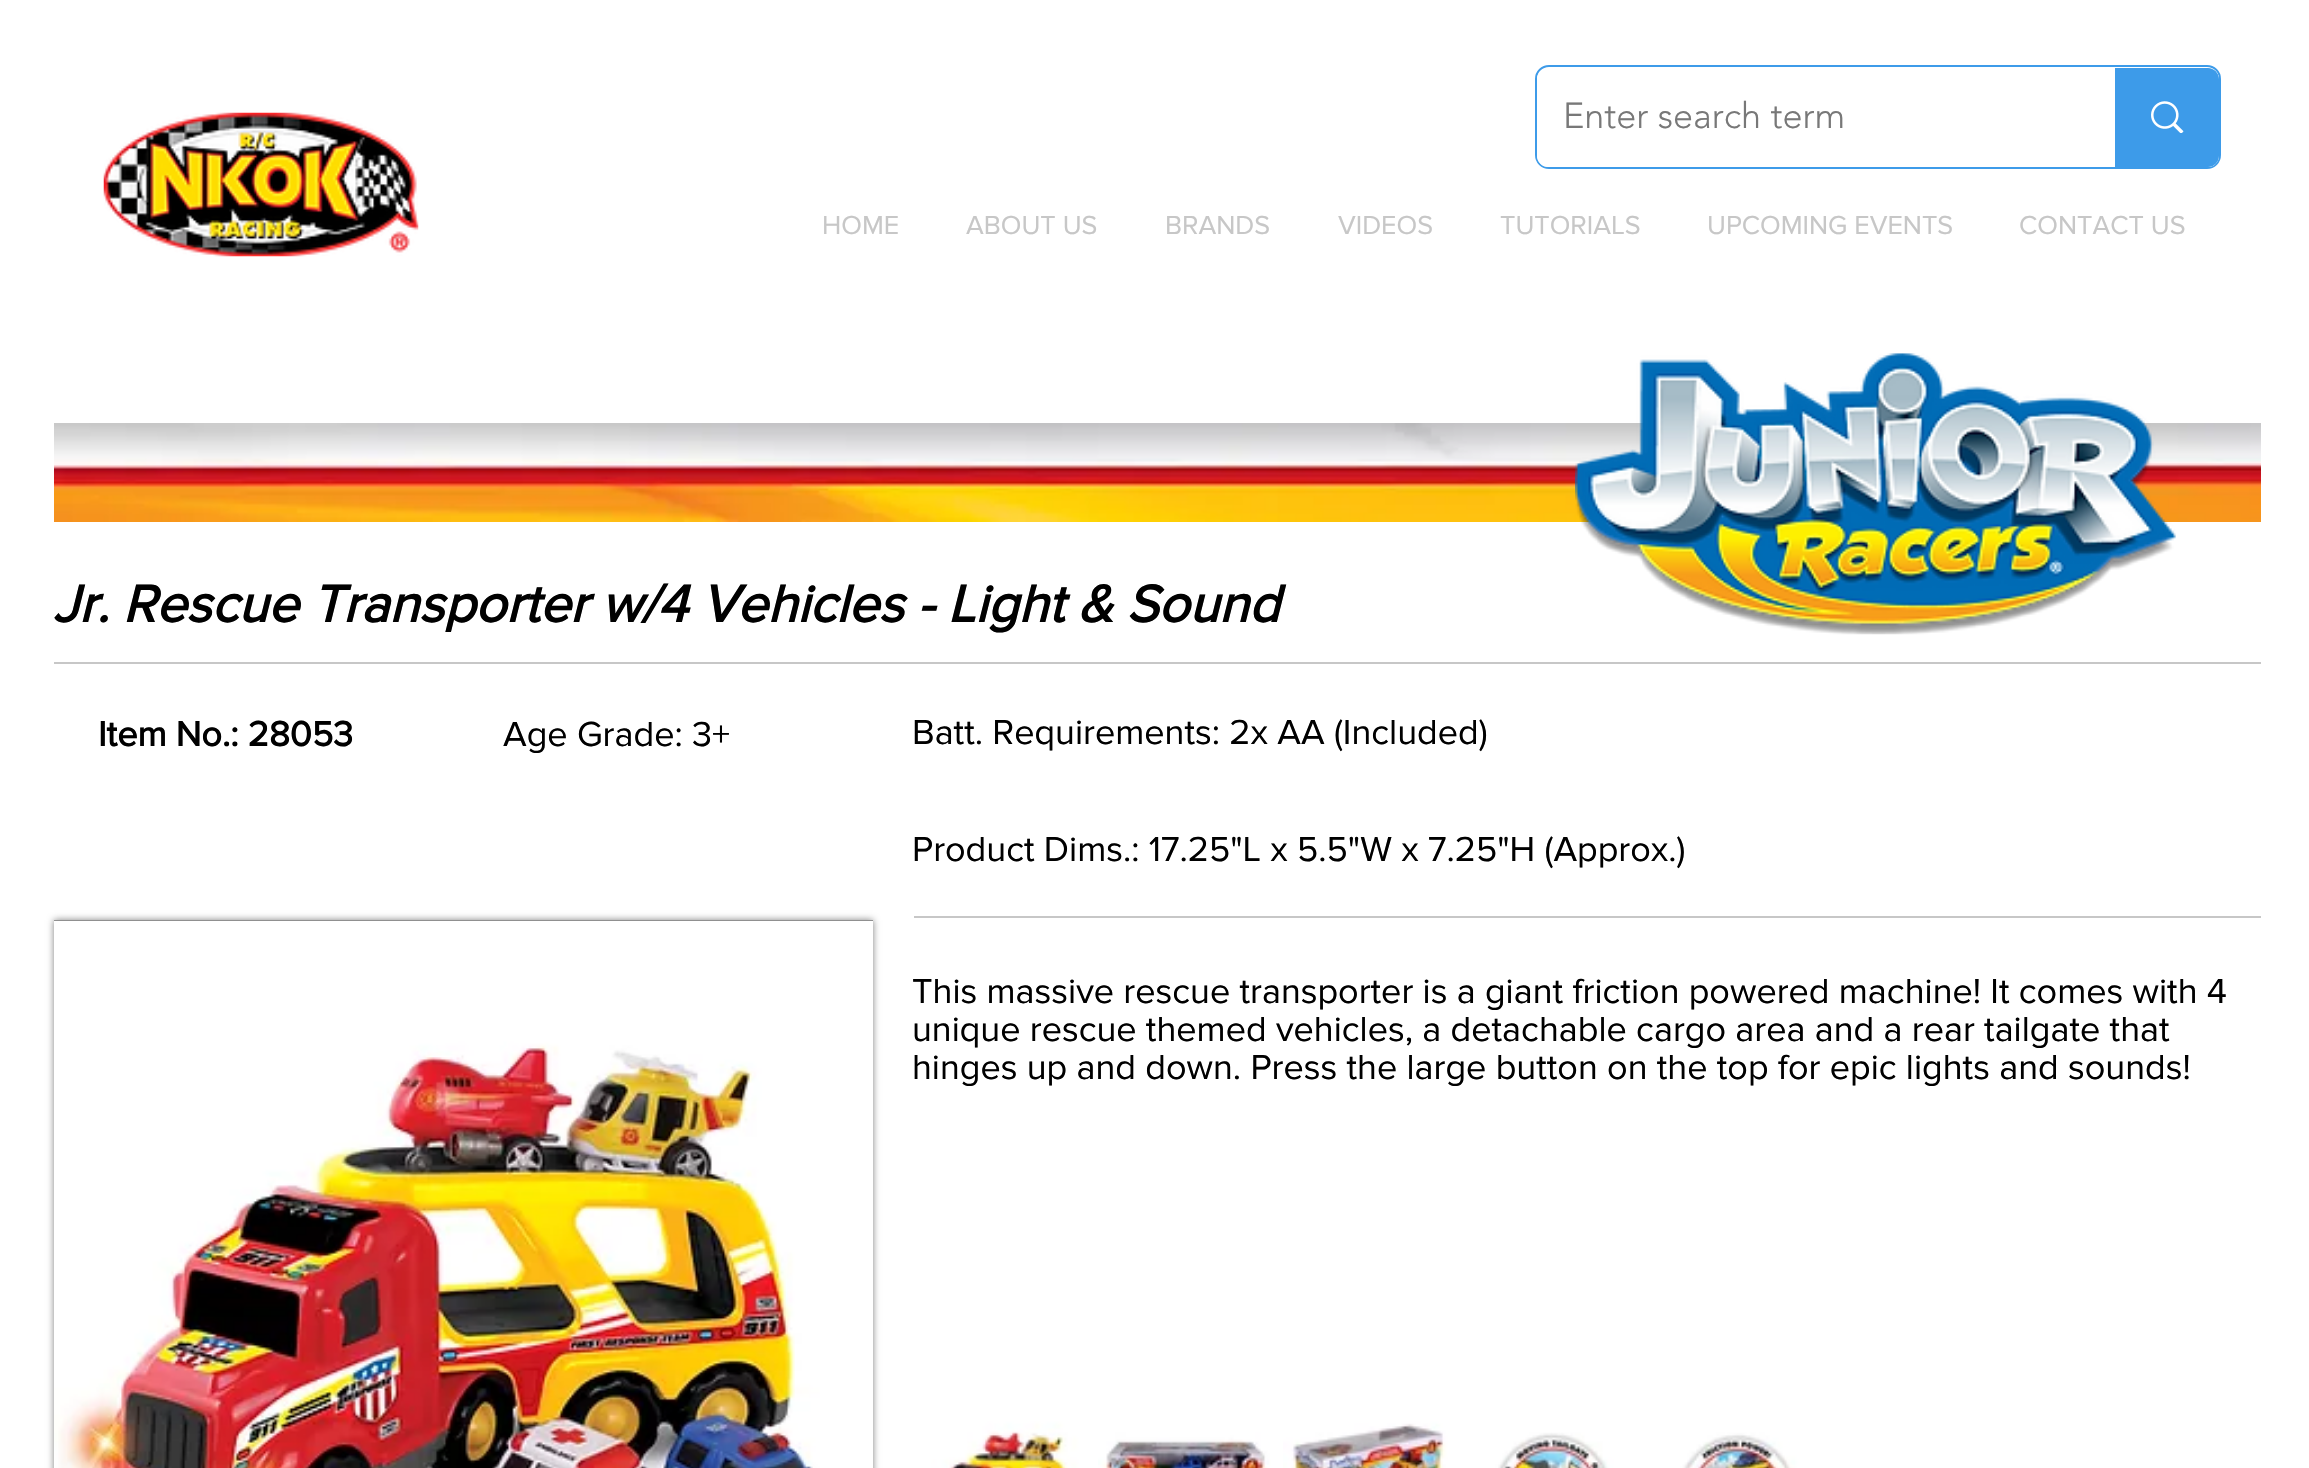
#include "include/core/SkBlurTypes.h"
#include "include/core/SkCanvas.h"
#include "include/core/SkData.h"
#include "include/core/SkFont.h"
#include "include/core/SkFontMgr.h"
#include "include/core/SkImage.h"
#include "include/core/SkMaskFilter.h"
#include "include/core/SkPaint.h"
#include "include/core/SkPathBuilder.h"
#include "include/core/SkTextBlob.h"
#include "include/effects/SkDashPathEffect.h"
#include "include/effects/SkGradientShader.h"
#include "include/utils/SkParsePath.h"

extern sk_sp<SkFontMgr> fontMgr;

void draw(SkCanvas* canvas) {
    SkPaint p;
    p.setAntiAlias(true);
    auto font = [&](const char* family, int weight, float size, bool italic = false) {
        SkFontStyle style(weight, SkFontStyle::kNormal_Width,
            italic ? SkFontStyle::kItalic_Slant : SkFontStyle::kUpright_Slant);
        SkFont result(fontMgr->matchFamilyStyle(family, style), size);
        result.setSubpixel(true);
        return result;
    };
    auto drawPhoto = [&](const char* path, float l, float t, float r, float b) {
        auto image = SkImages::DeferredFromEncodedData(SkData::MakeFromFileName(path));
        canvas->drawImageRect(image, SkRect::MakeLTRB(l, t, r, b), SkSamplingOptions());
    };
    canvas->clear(0xFFFFFFFF);
    drawPhoto("media/1.png", 103, 112, 419, 257);
    p.setStyle(SkPaint::kStroke_Style);
    p.setStrokeWidth(2);
    p.setColor(0xFF3D9BE9);
    canvas->drawRoundRect(SkRect::MakeLTRB(1536, 66, 2220, 168), 13, 13, p);
    p.setStyle(SkPaint::kFill_Style);
    p.setColor(0xFFFFFFFF);
    canvas->drawRoundRect(SkRect::MakeLTRB(1537, 68, 2219, 167), 11, 11, p);
    auto font1 = font("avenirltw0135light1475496", 300, 36);
    p.setColor(0xFF787878);
    canvas->drawString("Enter search term", 1563, 128, font1, p);
    p.setColor(0xFF3D9BE9);
    canvas->drawPath(SkPathBuilder().moveTo(2115, 68).lineTo(2208, 68).cubicTo(2214, 68, 2219, 73, 2219, 79).lineTo(2219, 156).cubicTo(2219, 162, 2214, 167, 2208, 167).lineTo(2115, 167).close().detach(), p);
    drawPhoto("media/2.png", 2151, 101, 2184, 133);
    auto font2 = font("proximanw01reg", 400, 27);
    p.setColor(0xFFC7C7C7);
    {
        const struct { const char* s; float x, y; } items[] = {
            {"HOME", 822, 234},
            {"ABOUT US", 966, 234},
            {"BRANDS", 1165, 234},
            {"VIDEOS", 1338, 234},
            {"TUTORIALS", 1500, 234},
            {"UPCOMING EVENTS", 1707, 234},
            {"CONTACT US", 2019, 234},
        };
        for (auto [s, x, y] : items) {
            canvas->drawString(s, x, y, font2, p);
        }
    }
    drawPhoto("media/4.png", 54, 423, 2261, 522);
    drawPhoto("media/3.png", 1575, 353, 2176, 635);
    auto font3 = font("proximanw01reg", 700, 54, true);
    p.setColor(0xFF000000);
    canvas->drawString("Jr. Rescue Transporter w/4 Vehicles - Light & Sound", 53, 622, font3, p);
    p.setColor(0xFFC7C7C7);
    canvas->drawRect(SkRect::MakeLTRB(54, 662, 2261, 664), p);
    auto font4 = font("proximanw01reg", 700, 36);
    p.setColor(0xFF000000);
    canvas->drawString("Item No.: 28053", 98, 746, font4, p);
    auto font5 = font("proximanw01reg", 400, 36);
    {
        const struct { const char* s; float x, y; } items[] = {
            {"Age Grade: 3+", 503, 746},
            {"Batt. Requirements: 2x AA (Included)", 912, 744},
            {"Product Dims.: 17.25\"L x 5.5\"W x 7.25\"H (Approx.)", 912, 861},
        };
        for (auto [s, x, y] : items) {
            canvas->drawString(s, x, y, font5, p);
        }
    }
    p.setColor(0x80000000);
    p.setMaskFilter(SkMaskFilter::MakeBlur(kNormal_SkBlurStyle, 3.5f));
    canvas->drawRect(SkRect::MakeLTRB(54, 920, 873, 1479), p);
    p.setMaskFilter(nullptr);
    p.setColor(0xFF000000);
    canvas->drawRect(SkRect::MakeLTRB(54, 920, 873, 921), p);
    drawPhoto("media/5.png", 54, 920, 873, 1468);
    p.setColor(0xFFC7C7C7);
    canvas->drawRect(SkRect::MakeLTRB(914, 916, 2261, 918), p);
    p.setColor(0xFF000000);
    {
        const struct { const char* s; float x, y; } items[] = {
            {"This massive rescue transporter is a giant friction powered machine! It comes with 4", 912, 1003},
            {"unique rescue themed vehicles, a detachable cargo area and a rear tailgate that", 912, 1041},
            {"hinges up and down. Press the large button on the top for epic lights and sounds!", 912, 1079},
        };
        for (auto [s, x, y] : items) {
            canvas->drawString(s, x, y, font5, p);
        }
    }
    drawPhoto("media/6.png", 914, 1406, 1087, 1468);
    drawPhoto("media/7.png", 1098, 1406, 1271, 1468);
    drawPhoto("media/8.png", 1283, 1406, 1456, 1468);
    drawPhoto("media/9.png", 1467, 1406, 1640, 1468);
    drawPhoto("media/10.png", 1652, 1406, 1825, 1468);
}
